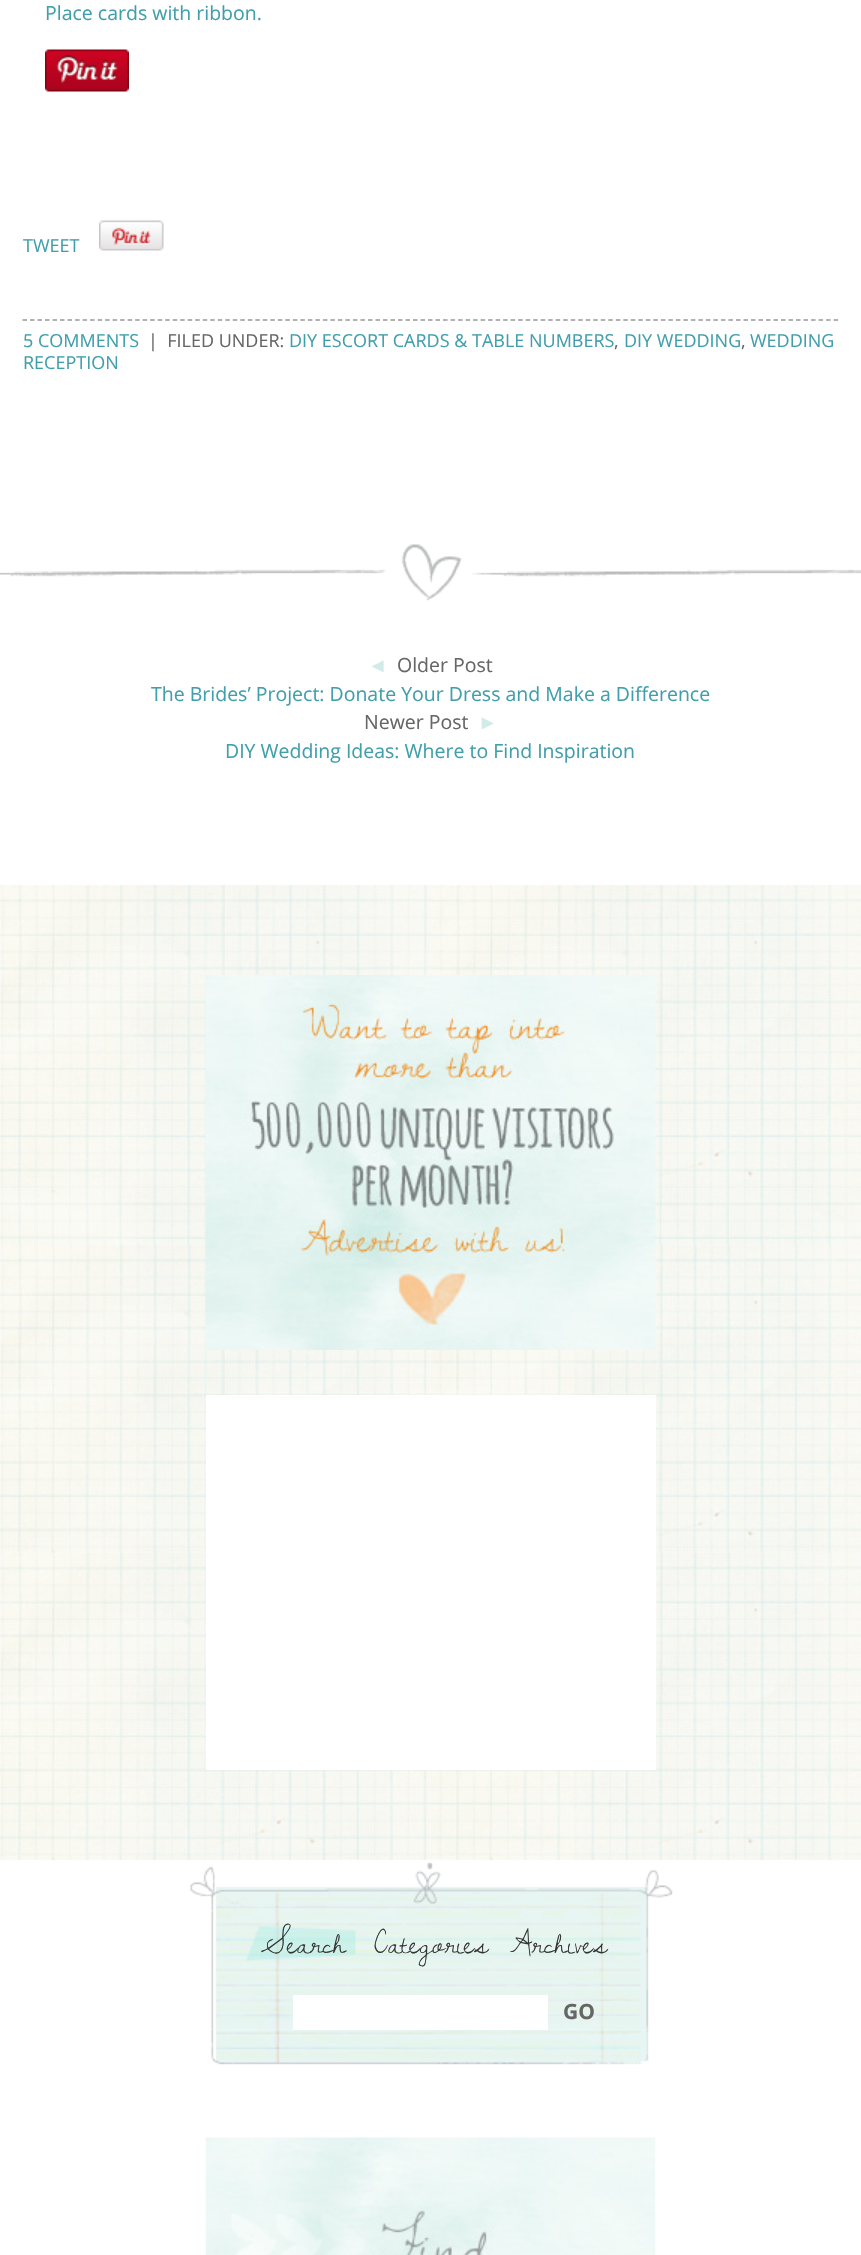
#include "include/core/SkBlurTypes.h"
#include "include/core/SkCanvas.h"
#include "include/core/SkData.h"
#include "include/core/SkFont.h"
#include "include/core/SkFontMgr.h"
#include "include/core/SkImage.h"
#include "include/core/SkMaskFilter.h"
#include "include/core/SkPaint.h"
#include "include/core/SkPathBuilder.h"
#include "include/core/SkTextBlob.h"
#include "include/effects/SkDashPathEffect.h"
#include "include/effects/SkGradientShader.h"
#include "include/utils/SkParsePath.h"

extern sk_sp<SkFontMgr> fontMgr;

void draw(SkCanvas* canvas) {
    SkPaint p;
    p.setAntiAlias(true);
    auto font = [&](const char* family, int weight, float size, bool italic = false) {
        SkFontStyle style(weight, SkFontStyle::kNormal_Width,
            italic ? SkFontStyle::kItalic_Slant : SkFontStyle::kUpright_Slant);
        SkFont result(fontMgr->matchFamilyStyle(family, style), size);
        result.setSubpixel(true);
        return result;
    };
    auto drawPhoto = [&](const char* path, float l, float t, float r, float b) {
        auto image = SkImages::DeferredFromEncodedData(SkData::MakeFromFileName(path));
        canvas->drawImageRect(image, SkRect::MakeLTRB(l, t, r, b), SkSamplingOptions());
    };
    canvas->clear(0xFFFFFFFF);
    auto font1 = font("Open Sans", 400, 19.5f);
    p.setColor(0xFF419FAB);
    canvas->drawString("Place cards with ribbon.", 45, 20, font1, p);
    drawPhoto("media/1.png", 45, 49, 129, 92);
    auto font2 = font("Open Sans", 400, 18);
    canvas->drawString("TWEET", 23, 252, font2, p);
    drawPhoto("media/2.png", 99, 220, 164, 251);
    p.setStyle(SkPaint::kStroke_Style);
    p.setStrokeWidth(1.5f);
    p.setColor(0xFF999999);
    p.setPathEffect(SkDashPathEffect::Make({{4.5f, 3.01f}}, 0));
    canvas->drawPath(SkPathBuilder().moveTo(22.5f, 320).lineTo(838.5f, 320).detach(), p);
    p.setPathEffect(nullptr);
    p.setStyle(SkPaint::kFill_Style);
    p.setColor(0xFF419FAB);
    canvas->drawString("5 COMMENTS", 23, 347, font2, p);
    p.setColor(0xFF666666);
    canvas->drawString("|  FILED UNDER:", 148, 347, font2, p);
    p.setColor(0xFF419FAB);
    canvas->drawString("DIY ESCORT CARDS & TABLE NUMBERS", 289, 347, font2, p);
    p.setColor(0xFF666666);
    canvas->drawString(",", 614, 347, font2, p);
    p.setColor(0xFF419FAB);
    canvas->drawString("DIY WEDDING", 624, 347, font2, p);
    p.setColor(0xFF666666);
    canvas->drawString(",", 741, 347, font2, p);
    p.setColor(0xFF419FAB);
    canvas->drawString("WEDDING", 750, 347, font2, p);
    canvas->drawString("RECEPTION", 23, 369, font2, p);
    drawPhoto("media/3.png", 0, 544, 861, 601);
    auto font3 = font("Liberation Sans", 400, 19.5f);
    p.setColor(0xFFD1ECE8);
    canvas->drawString("◄", 368, 672, font3, p);
    p.setColor(0xFF666666);
    canvas->drawString("Older Post", 397, 672, font1, p);
    p.setColor(0xFF419FAB);
    canvas->drawString("The Brides’ Project: Donate Your Dress and Make a Difference", 151, 701, font1, p);
    p.setColor(0xFF666666);
    canvas->drawString("Newer Post", 364, 729, font1, p);
    p.setColor(0xFFD1ECE8);
    canvas->drawString("►", 478, 729, font3, p);
    p.setColor(0xFF419FAB);
    canvas->drawString("DIY Wedding Ideas: Where to Find Inspiration", 225, 758, font1, p);
    drawPhoto("media/4.png", 0, 885, 861, 1860);
    drawPhoto("media/5.png", 205, 975, 656, 1350);
    p.setColor(0xFFFFFFFF);
    canvas->drawRect(SkRect::MakeLTRB(206, 1395, 656, 1770), p);
    drawPhoto("media/6.png", 190, 1860, 673, 1920);
    drawPhoto("media/7.png", 211, 1920, 649, 2030);
    drawPhoto("media/8.png", 246, 1926, 356, 1961);
    auto font4 = font("Dawning of a New Day", 400, 33);
    p.setColor(0xFF333333);
    {
        const struct { const char* s; float x, y; } items[] = {
            {"Search", 261, 1953},
            {"Categories", 374, 1953},
            {"Archives", 510, 1953},
        };
        for (auto [s, x, y] : items) {
            canvas->drawString(s, x, y, font4, p);
        }
    }
    drawPhoto("media/9.png", 211, 2029, 649, 2065);
    p.setColor(0xFFFFFFFF);
    canvas->drawRect(SkRect::MakeLTRB(293, 1995, 548, 2030), p);
    auto font5 = font("Open Sans", 700, 21);
    p.setColor(0xFF666666);
    canvas->drawString("GO", 563, 2019, font5, p);
    drawPhoto("media/10.png", 205, 2137, 656, 2255);
}
